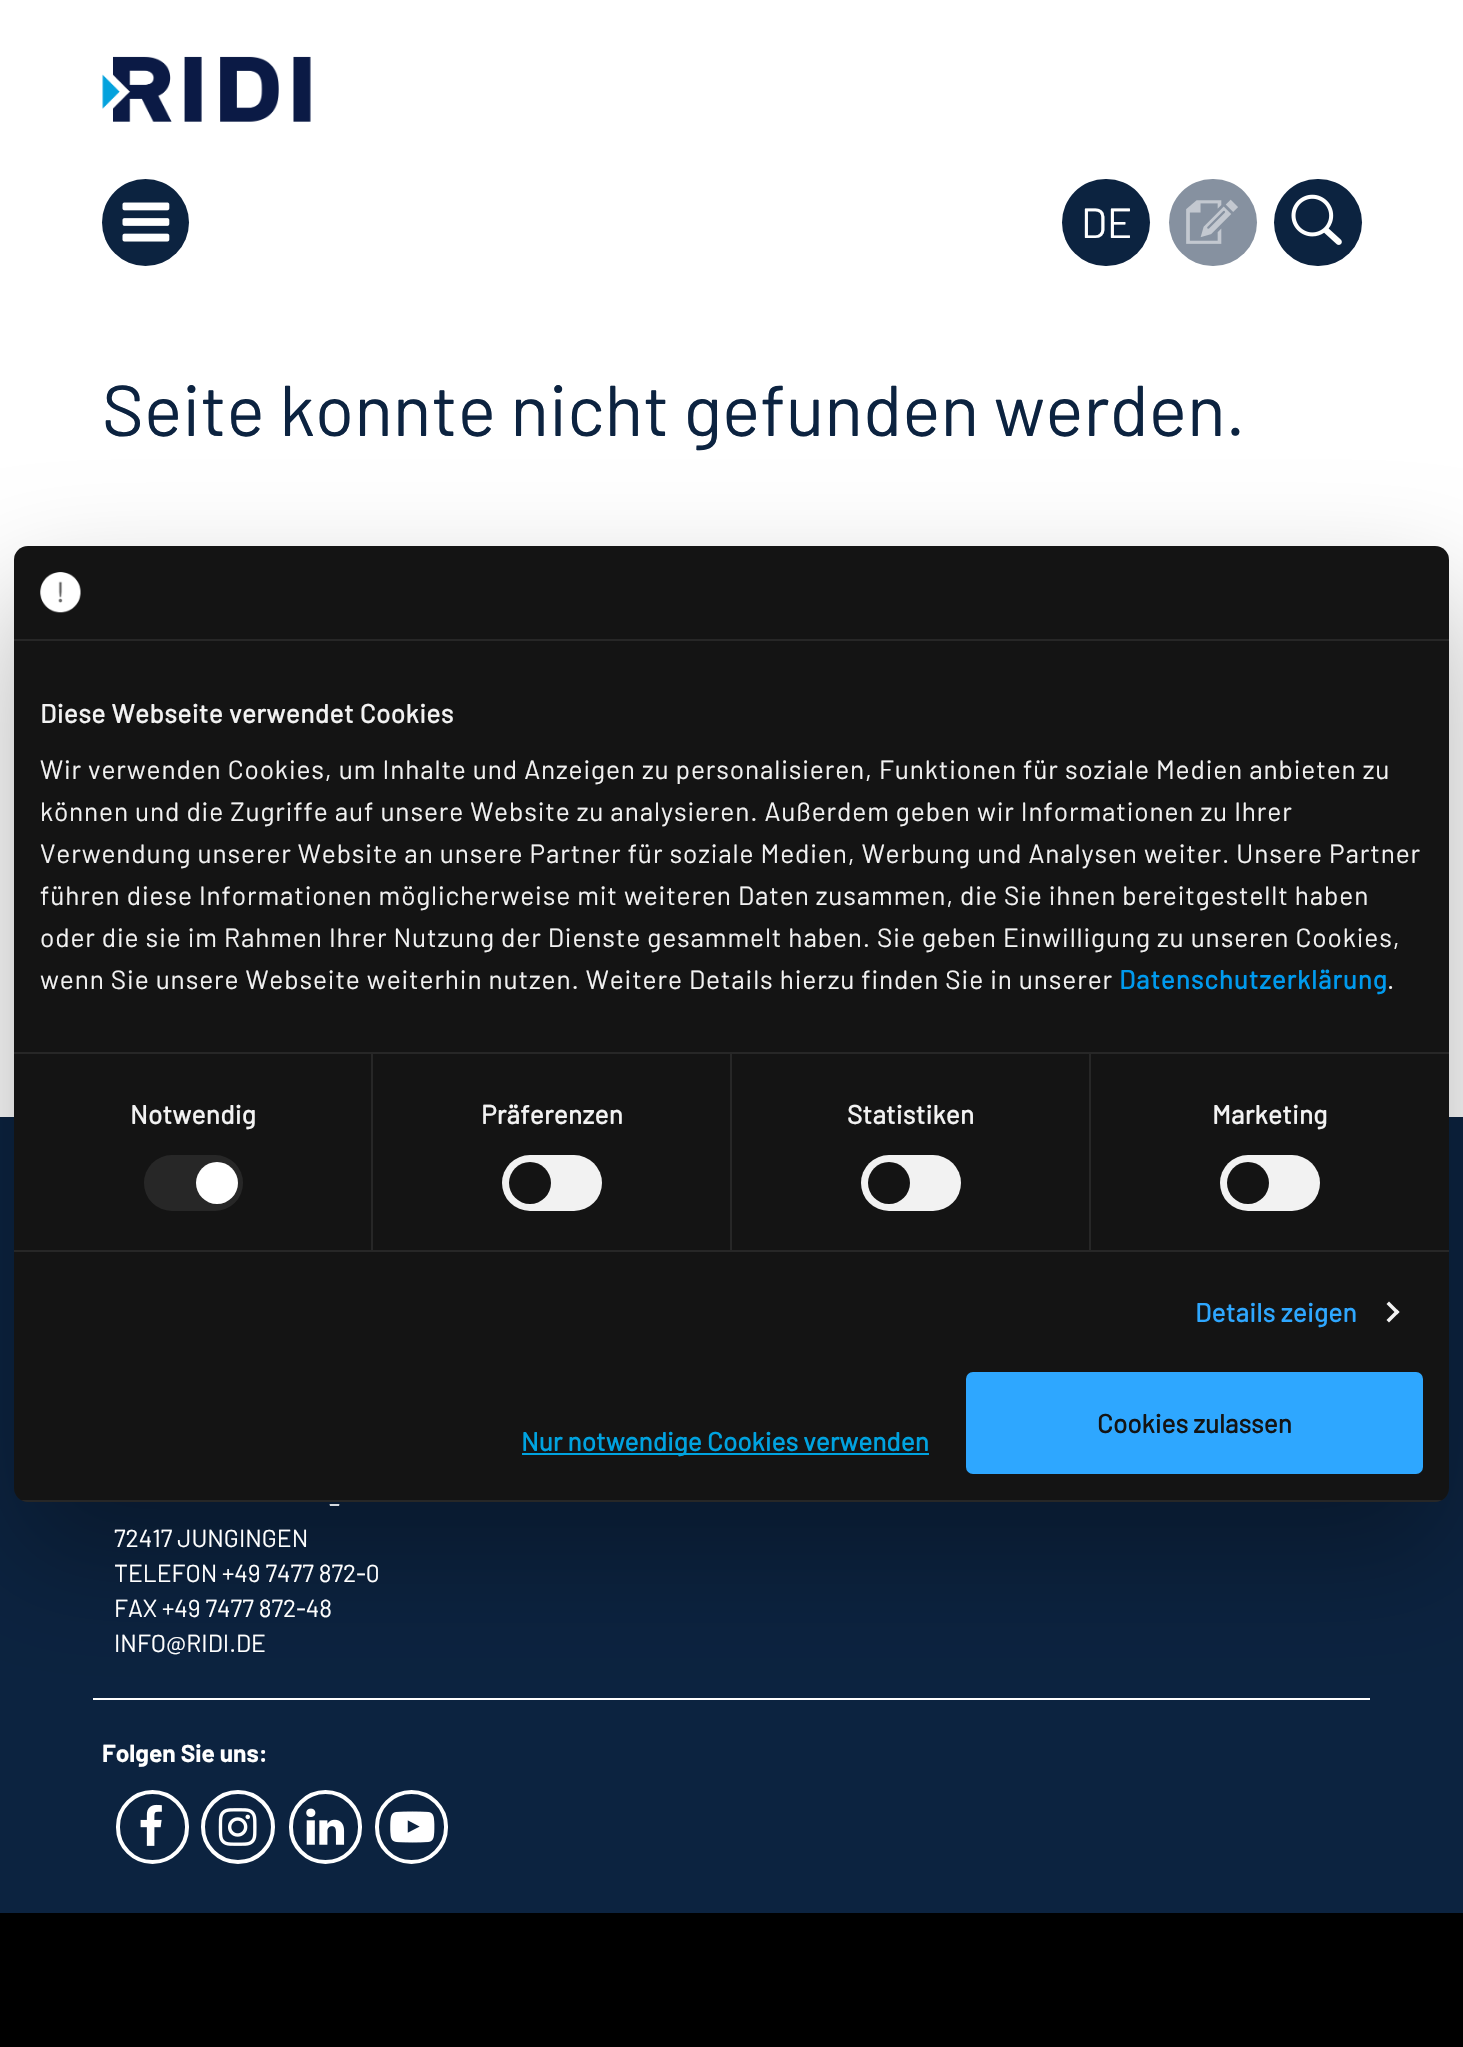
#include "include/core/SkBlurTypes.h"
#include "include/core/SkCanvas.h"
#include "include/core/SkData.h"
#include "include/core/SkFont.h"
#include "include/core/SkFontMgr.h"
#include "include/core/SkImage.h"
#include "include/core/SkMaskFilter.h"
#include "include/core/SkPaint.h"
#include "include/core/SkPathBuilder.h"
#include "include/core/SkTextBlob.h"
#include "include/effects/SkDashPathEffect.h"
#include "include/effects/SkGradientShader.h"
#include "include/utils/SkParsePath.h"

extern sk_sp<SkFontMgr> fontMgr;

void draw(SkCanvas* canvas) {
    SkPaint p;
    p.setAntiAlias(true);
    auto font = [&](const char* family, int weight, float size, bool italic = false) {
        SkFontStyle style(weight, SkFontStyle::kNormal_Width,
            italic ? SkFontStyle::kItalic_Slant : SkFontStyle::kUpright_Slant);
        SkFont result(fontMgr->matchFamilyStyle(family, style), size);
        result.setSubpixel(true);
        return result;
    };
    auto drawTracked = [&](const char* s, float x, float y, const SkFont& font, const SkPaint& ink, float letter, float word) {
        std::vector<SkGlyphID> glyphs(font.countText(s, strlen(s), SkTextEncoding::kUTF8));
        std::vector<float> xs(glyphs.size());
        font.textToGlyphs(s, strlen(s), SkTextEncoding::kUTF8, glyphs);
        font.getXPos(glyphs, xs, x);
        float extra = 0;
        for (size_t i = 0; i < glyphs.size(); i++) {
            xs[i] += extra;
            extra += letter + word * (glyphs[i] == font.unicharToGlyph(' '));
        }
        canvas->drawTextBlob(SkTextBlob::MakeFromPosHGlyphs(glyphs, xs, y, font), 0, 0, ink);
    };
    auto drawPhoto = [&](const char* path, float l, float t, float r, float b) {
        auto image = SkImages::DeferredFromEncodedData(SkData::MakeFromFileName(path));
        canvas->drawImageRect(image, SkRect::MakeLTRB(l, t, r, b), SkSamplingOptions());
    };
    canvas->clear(0xFF000000);
    p.setColor(0xFFFFFFFF);
    canvas->drawRect(SkRect::MakeLTRB(0, 0, 1463, 1117), p);
    drawPhoto("media/1.png", 102, 56, 311, 122);
    p.setColor(0xFF0C2340);
    canvas->drawCircle(145.5f, 222.5f, 43.5f, p);
    drawPhoto("media/2.png", 122, 202, 170, 242);
    canvas->drawRoundRect(SkRect::MakeLTRB(1062, 179, 1150, 266), 43.5f, 43.5f, p);
    auto font1 = font("Barlow", 400, 42);
    p.setColor(0xFFFFFFFF);
    canvas->drawString("DE", 1081, 238, font1, p);
    p.setColor(0xFF8691A0);
    canvas->drawRoundRect(SkRect::MakeLTRB(1169, 179, 1257, 266), 43.5f, 43.5f, p);
    drawPhoto("media/3.png", 1186, 199, 1238, 244);
    p.setColor(0xFF0C2340);
    canvas->drawRoundRect(SkRect::MakeLTRB(1274, 179, 1362, 266), 43.5f, 43.5f, p);
    drawPhoto("media/4.png", 1291, 194, 1342, 245);
    auto font2 = font("Barlow", 400, 71.75f);
    canvas->drawString("Seite konnte nicht gefunden werden.", 102, 436, font2, p);
    canvas->drawRect(SkRect::MakeLTRB(0, 1117, 1463, 1913), p);
    p.setColor(0xFFFFFFFF);
    canvas->drawRect(SkRect::MakeLTRB(93, 1698, 1370, 1700), p);
    p.setColor(0x4D000000);
    p.setMaskFilter(SkMaskFilter::MakeBlur(kNormal_SkBlurStyle, 59.5f));
    canvas->drawRoundRect(SkRect::MakeLTRB(14, 602, 1449, 1558), 14, 14, p);
    p.setMaskFilter(nullptr);
    p.setColor(0xFF141414);
    canvas->drawRoundRect(SkRect::MakeLTRB(14, 546, 1449, 1502), 14, 14, p);
    p.setColor(0xFF272727);
    canvas->drawRect(SkRect::MakeLTRB(14, 639, 1449, 641), p);
    drawPhoto("media/5.png", 40, 572, 81, 613);
    canvas->drawRect(SkRect::MakeLTRB(14, 1052, 1449, 1054), p);
    auto font3 = font("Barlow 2", 700, 26.25f);
    p.setColor(0xFFF2F2F2);
    drawTracked("Diese Webseite verwendet Cookies", 40, 723, font3, p, 0.45f, 0);
    auto font4 = font("Barlow", 400, 26.25f);
    {
        const struct { const char* s; float x, y; } items[] = {
            {"Wir verwenden Cookies, um Inhalte und Anzeigen zu personalisieren, Funktionen für soziale Medien anbieten zu", 40, 779},
            {"können und die Zugriffe auf unsere Website zu analysieren. Außerdem geben wir Informationen zu Ihrer", 40, 821},
            {"Verwendung unserer Website an unsere Partner für soziale Medien, Werbung und Analysen weiter. Unsere Partner", 40, 863},
            {"führen diese Informationen möglicherweise mit weiteren Daten zusammen, die Sie ihnen bereitgestellt haben", 40, 905},
            {"oder die sie im Rahmen Ihrer Nutzung der Dienste gesammelt haben. Sie geben Einwilligung zu unseren Cookies,", 40, 947},
            {"wenn Sie unsere Webseite weiterhin nutzen. Weitere Details hierzu finden Sie in unserer", 40, 989},
        };
        for (auto [s, x, y] : items) {
            drawTracked(s, x, y, font4, p, 0.88f, 0);
        }
    }
    p.setColor(0xFF009AEE);
    drawTracked("Datenschutzerklärung", 1119, 989, font3, p, 0.88f, 0);
    p.setColor(0xFFF2F2F2);
    drawTracked(".", 1387, 989, font4, p, 0.88f, 0);
    p.setColor(0xFF272727);
    canvas->drawRect(SkRect::MakeLTRB(14, 1250, 1449, 1252), p);
    canvas->drawRect(SkRect::MakeLTRB(371, 1054, 373, 1250), p);
    p.setColor(0xFFF2F2F2);
    drawTracked("Notwendig", 130, 1124, font3, p, 0.25f, 0);
    p.setColor(0xFF272727);
    canvas->drawRoundRect(SkRect::MakeLTRB(144, 1155, 243, 1211), 28, 28, p);
    p.setColor(0xFFFFFFFF);
    canvas->drawCircle(217, 1183, 21, p);
    p.setColor(0xFF272727);
    canvas->drawRect(SkRect::MakeLTRB(730, 1054, 732, 1250), p);
    p.setColor(0xFFF2F2F2);
    drawTracked("Präferenzen", 481, 1124, font3, p, 0.25f, 0);
    canvas->drawRoundRect(SkRect::MakeLTRB(502, 1155, 602, 1211), 28, 28, p);
    p.setColor(0xFF141414);
    canvas->drawCircle(530, 1183, 21, p);
    p.setColor(0xFF272727);
    canvas->drawRect(SkRect::MakeLTRB(1089, 1054, 1091, 1250), p);
    p.setColor(0xFFF2F2F2);
    drawTracked("Statistiken", 847, 1124, font3, p, 0.25f, 0);
    canvas->drawRoundRect(SkRect::MakeLTRB(861, 1155, 961, 1211), 28, 28, p);
    p.setColor(0xFF141414);
    canvas->drawCircle(889, 1183, 21, p);
    p.setColor(0xFFF2F2F2);
    drawTracked("Marketing", 1212, 1124, font3, p, 0.25f, 0);
    canvas->drawRoundRect(SkRect::MakeLTRB(1220, 1155, 1320, 1211), 28, 28, p);
    p.setColor(0xFF141414);
    canvas->drawCircle(1248, 1183, 21, p);
    p.setColor(0xFF2EA7FF);
    drawTracked("Details zeigen", 1195, 1322, font3, p, 0.25f, 0);
    p.setColor(0xFFF2F2F2);
    canvas->drawPath(SkPathBuilder().moveTo(1389, 1301.5f).lineTo(1399.5f, 1312).lineTo(1397, 1314.5f).lineTo(1386.5f, 1304).close().detach(), p);
    canvas->drawPath(SkPathBuilder().moveTo(1397, 1309.5f).lineTo(1399.5f, 1312).lineTo(1389, 1322.5f).lineTo(1386.5f, 1320).close().detach(), p);
    canvas->save();
    canvas->clipPath(SkPathBuilder().moveTo(28, 546).lineTo(1435, 546).cubicTo(1442.5f, 546, 1449, 552.5f, 1449, 560).lineTo(1449, 1488).cubicTo(1449, 1495.5f, 1442.5f, 1502, 1435, 1502).lineTo(28, 1502).cubicTo(20.5f, 1502, 14, 1495.5f, 14, 1488).lineTo(14, 560).cubicTo(14, 552.5f, 20.5f, 546, 28, 546).close().detach(), true);
    p.setColor(0x14FFFFFF);
    canvas->drawRect(SkRect::MakeLTRB(14, 1500, 1449, 1502), p);
    canvas->restore();
    p.setColor(0xFF2EA7FF);
    canvas->drawRoundRect(SkRect::MakeLTRB(968, 1374, 1421, 1472), 5, 5, p);
    p.setStyle(SkPaint::kStroke_Style);
    p.setStrokeWidth(4);
    canvas->drawRoundRect(SkRect::MakeLTRB(968, 1374, 1421, 1472), 5, 5, p);
    p.setStyle(SkPaint::kFill_Style);
    p.setColor(0xFF141414);
    canvas->drawString("Cookies zulassen", 1097, 1433, font3, p);
    p.setColor(0xFF00A3E0);
    canvas->drawRect(SkRect::MakeLTRB(522, 1453, 929, 1455), p);
    canvas->drawString("Nur notwendige Cookies verwenden", 521, 1451, font3, p);
    auto font5 = font("Barlow", 400, 24.5f);
    p.setColor(0xFFFFFFFF);
    drawTracked("–", 329, 1512, font5, p, 0, -1);
    {
        const struct { const char* s; float x, y; } items[] = {
            {"72417 JUNGINGEN", 114, 1547},
            {"TELEFON +49 7477 872-0", 114, 1582},
            {"FAX +49 7477 872-48", 114, 1617},
            {"INFO@RIDI.DE", 114, 1652},
        };
        for (auto [s, x, y] : items) {
            canvas->drawString(s, x, y, font5, p);
        }
    }
    auto font6 = font("Barlow", 700, 24.5f);
    canvas->drawString("Folgen Sie uns:", 102, 1762, font6, p);
    p.setStyle(SkPaint::kStroke_Style);
    canvas->drawRoundRect(SkRect::MakeLTRB(118, 1792, 187, 1862), 34.5f, 34.5f, p);
    drawPhoto("media/6.png", 140, 1804, 162, 1846);
    canvas->drawCircle(238, 1827, 35, p);
    drawPhoto("media/7.png", 218, 1808, 257, 1846);
    canvas->drawRoundRect(SkRect::MakeLTRB(291, 1792, 360, 1862), 34.5f, 34.5f, p);
    drawPhoto("media/8.png", 306, 1808, 345, 1845);
    canvas->drawRoundRect(SkRect::MakeLTRB(377, 1792, 446, 1862), 34.5f, 34.5f, p);
    drawPhoto("media/9.png", 390, 1811, 435, 1843);
}
